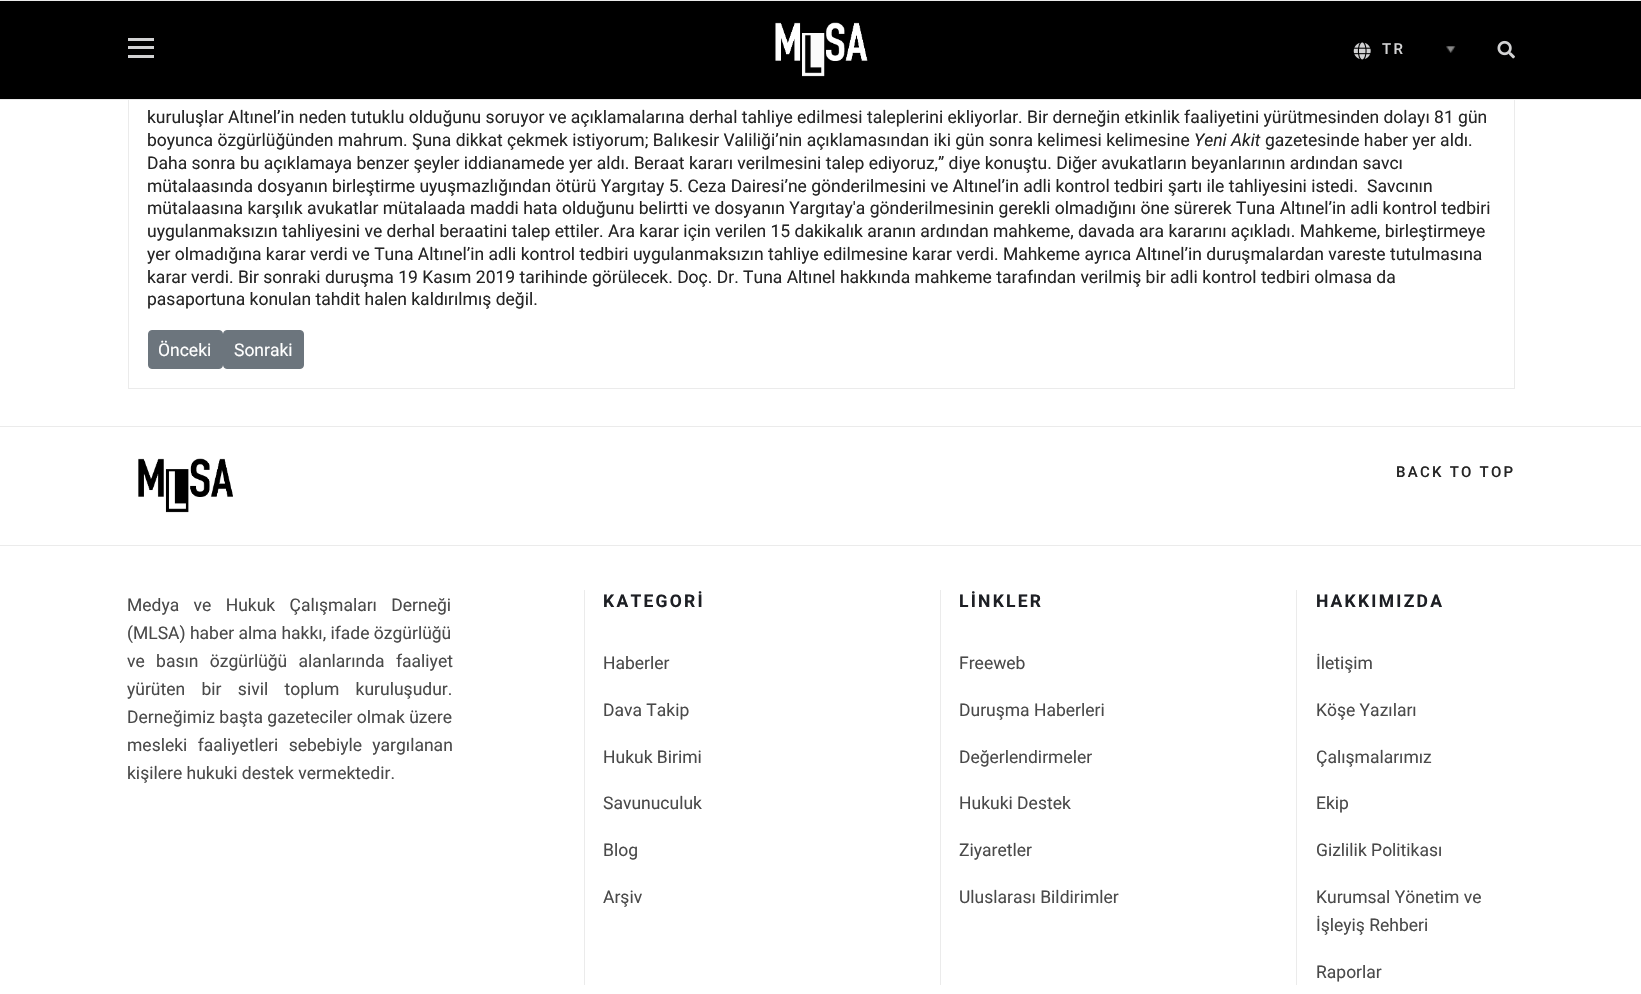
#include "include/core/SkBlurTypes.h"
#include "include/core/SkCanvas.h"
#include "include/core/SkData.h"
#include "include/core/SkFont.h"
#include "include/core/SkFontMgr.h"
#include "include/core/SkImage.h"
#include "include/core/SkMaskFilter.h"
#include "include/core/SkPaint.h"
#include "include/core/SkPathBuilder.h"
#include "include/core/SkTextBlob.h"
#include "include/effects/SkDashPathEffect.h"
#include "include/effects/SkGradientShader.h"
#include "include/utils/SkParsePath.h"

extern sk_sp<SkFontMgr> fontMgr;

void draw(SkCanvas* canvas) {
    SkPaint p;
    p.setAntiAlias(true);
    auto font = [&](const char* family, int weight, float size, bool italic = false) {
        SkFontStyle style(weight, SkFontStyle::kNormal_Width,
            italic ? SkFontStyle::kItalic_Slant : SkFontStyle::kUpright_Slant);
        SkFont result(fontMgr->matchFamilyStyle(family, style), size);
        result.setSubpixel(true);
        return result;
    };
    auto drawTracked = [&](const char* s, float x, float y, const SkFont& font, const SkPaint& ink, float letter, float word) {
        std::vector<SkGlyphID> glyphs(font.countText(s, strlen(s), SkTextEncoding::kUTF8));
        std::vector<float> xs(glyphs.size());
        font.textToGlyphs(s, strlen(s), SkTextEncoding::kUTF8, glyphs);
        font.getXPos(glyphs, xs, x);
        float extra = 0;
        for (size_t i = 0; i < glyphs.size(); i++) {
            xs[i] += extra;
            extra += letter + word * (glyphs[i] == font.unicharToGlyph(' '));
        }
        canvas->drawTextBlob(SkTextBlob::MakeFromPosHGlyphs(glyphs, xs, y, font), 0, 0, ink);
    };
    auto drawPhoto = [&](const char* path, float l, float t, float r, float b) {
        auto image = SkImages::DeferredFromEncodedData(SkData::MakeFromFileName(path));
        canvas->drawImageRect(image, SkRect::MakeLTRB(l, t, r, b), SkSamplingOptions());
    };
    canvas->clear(0xFFFFFFFF);
    p.setStyle(SkPaint::kStroke_Style);
    p.setStrokeWidth(1);
    p.setColor(0xFFEBEBEB);
    canvas->drawRect(SkRect::MakeLTRB(128.5f, -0.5f, 1514.5f, 388.5f), p);
    p.setStyle(SkPaint::kFill_Style);
    {
        const struct { float l, t, r, b; SkColor color; } items[] = {
            {0, 1, 1641, 99, 0xFF000000},
            {0, 0, 1641, 1, 0xFFEAEAEA},
            {0, 99, 1641, 100, 0xFFEAEAEA},
            {128, 38, 154, 41, 0xFFD2D2D3},
            {128, 46, 154, 49, 0xFFD2D2D3},
            {128, 55, 154, 58, 0xFFD2D2D3},
        };
        for (auto [l, t, r, b, color] : items) {
            p.setColor(color);
            canvas->drawRect(SkRect::MakeLTRB(l, t, r, b), p);
        }
    }
    drawPhoto("media/1.png", 775, 22, 868, 77);
    drawPhoto("media/2.png", 1353, 42, 1371, 60);
    auto font1 = font("Roboto", 500, 15);
    drawTracked("TR", 1382, 54, font1, p, 2.25f, 0);
    drawPhoto("media/3.png", 1446, 46, 1456, 53);
    drawPhoto("media/4.png", 1497, 40, 1515, 59);
    auto font2 = font("Roboto", 400, 17.5f);
    p.setColor(0xFF252525);
    canvas->drawString("kuruluşlar Altınel’in neden tutuklu olduğunu soruyor ve açıklamalarına derhal tahliye edilmesi taleplerini ekliyorlar. Bir derneğin etkinlik faaliyetini yürütmesinden dolayı 81 gün", 147, 123, font2, p);
    canvas->drawString("boyunca özgürlüğünden mahrum. Şuna dikkat çekmek istiyorum; Balıkesir Valiliği’nin açıklamasından iki gün sonra kelimesi kelimesine", 147, 146, font2, p);
    auto font3 = font("Roboto", 400, 17.5f, true);
    canvas->drawString("Yeni Akit", 1194, 146, font3, p);
    {
        const struct { const char* s; float x, y; } items[] = {
            {"gazetesinde haber yer aldı.", 1265, 146},
            {"Daha sonra bu açıklamaya benzer şeyler iddianamede yer aldı. Beraat kararı verilmesini talep ediyoruz,” diye konuştu. Diğer avukatların beyanlarının ardından savcı", 147, 169},
            {"mütalaasında dosyanın birleştirme uyuşmazlığından ötürü Yargıtay 5. Ceza Dairesi’ne gönderilmesini ve Altınel’in adli kontrol tedbiri şartı ile tahliyesini istedi.", 147, 192},
            {"Savcının", 1367, 192},
            {"mütalaasına karşılık avukatlar mütalaada maddi hata olduğunu belirtti ve dosyanın Yargıtay'a gönderilmesinin gerekli olmadığını öne sürerek Tuna Altınel’in adli kontrol tedbiri", 147, 214},
            {"uygulanmaksızın tahliyesini ve derhal beraatini talep ettiler. Ara karar için verilen 15 dakikalık aranın ardından mahkeme, davada ara kararını açıkladı. Mahkeme, birleştirmeye", 147, 237},
            {"yer olmadığına karar verdi ve Tuna Altınel’in adli kontrol tedbiri uygulanmaksızın tahliye edilmesine karar verdi. Mahkeme ayrıca Altınel’in duruşmalardan vareste tutulmasına", 147, 260},
            {"karar verdi. Bir sonraki duruşma 19 Kasım 2019 tarihinde görülecek. Doç. Dr. Tuna Altınel hakkında mahkeme tarafından verilmiş bir adli kontrol tedbiri olmasa da", 147, 283},
            {"pasaportuna konulan tahdit halen kaldırılmış değil.", 147, 305},
        };
        for (auto [s, x, y] : items) {
            canvas->drawString(s, x, y, font2, p);
        }
    }
    p.setColor(0xFF6C757D);
    canvas->drawRoundRect(SkRect::MakeLTRB(148.5f, 330.5f, 222.5f, 368.5f), 3.5f, 3.5f, p);
    p.setStyle(SkPaint::kStroke_Style);
    canvas->drawRoundRect(SkRect::MakeLTRB(148.5f, 330.5f, 222.5f, 368.5f), 3.5f, 3.5f, p);
    p.setStyle(SkPaint::kFill_Style);
    p.setColor(0xFFFFFFFF);
    canvas->drawString("Önceki", 158, 356, font2, p);
    p.setColor(0xFF6C757D);
    canvas->drawRoundRect(SkRect::MakeLTRB(223.5f, 330.5f, 303.5f, 368.5f), 3.5f, 3.5f, p);
    p.setStyle(SkPaint::kStroke_Style);
    canvas->drawRoundRect(SkRect::MakeLTRB(223.5f, 330.5f, 303.5f, 368.5f), 3.5f, 3.5f, p);
    p.setStyle(SkPaint::kFill_Style);
    p.setColor(0xFFFFFFFF);
    canvas->drawString("Sonraki", 234, 356, font2, p);
    p.setColor(0xFFEBEBEB);
    canvas->drawRect(SkRect::MakeLTRB(0, 426, 1641, 427), p);
    canvas->drawRect(SkRect::MakeLTRB(0, 545, 1641, 546), p);
    drawPhoto("media/5.png", 138, 458, 233, 513);
    p.setColor(0xFF252525);
    drawTracked("BACK TO TOP", 1396, 477, font1, p, 2.25f, 0);
    p.setColor(0xFF4A4A4A);
    drawTracked("Medya ve Hukuk Çalışmaları Derneği", 127, 611, font2, p, 0, 10);
    canvas->drawString("(MLSA) haber alma hakkı, ifade özgürlüğü", 127, 639, font2, p);
    drawTracked("ve basın özgürlüğü alanlarında faaliyet", 127, 667, font2, p, 0, 7);
    drawTracked("yürüten bir sivil toplum kuruluşudur.", 127, 695, font2, p, 0, 12);
    canvas->drawString("Derneğimiz başta gazeteciler olmak üzere", 127, 723, font2, p);
    drawTracked("mesleki faaliyetleri sebebiyle yargılanan", 127, 751, font2, p, 0, 6);
    canvas->drawString("kişilere hukuki destek vermektedir.", 127, 779, font2, p);
    p.setColor(0xFFEBEBEB);
    canvas->drawRect(SkRect::MakeLTRB(584, 590, 585, 985), p);
    auto font4 = font("Roboto", 700, 17.5f);
    p.setColor(0xFF1D1F24);
    drawTracked("KATEGORİ", 603, 607, font4, p, 2.25f, 0);
    p.setColor(0xFF4A4A4A);
    {
        const struct { const char* s; float x, y; } items[] = {
            {"Haberler", 603, 669},
            {"Dava Takip", 603, 716},
            {"Hukuk Birimi", 603, 763},
            {"Savunuculuk", 603, 809},
            {"Blog", 603, 856},
            {"Arşiv", 603, 903},
        };
        for (auto [s, x, y] : items) {
            canvas->drawString(s, x, y, font2, p);
        }
    }
    p.setColor(0xFFEBEBEB);
    canvas->drawRect(SkRect::MakeLTRB(940, 590, 941, 985), p);
    p.setColor(0xFF1D1F24);
    drawTracked("LİNKLER", 959, 607, font4, p, 2.25f, 0);
    p.setColor(0xFF4A4A4A);
    {
        const struct { const char* s; float x, y; } items[] = {
            {"Freeweb", 959, 669},
            {"Duruşma Haberleri", 959, 716},
            {"Değerlendirmeler", 959, 763},
            {"Hukuki Destek", 959, 809},
            {"Ziyaretler", 959, 856},
            {"Uluslarası Bildirimler", 959, 903},
        };
        for (auto [s, x, y] : items) {
            canvas->drawString(s, x, y, font2, p);
        }
    }
    p.setColor(0xFFEBEBEB);
    canvas->drawRect(SkRect::MakeLTRB(1296, 590, 1297, 985), p);
    p.setColor(0xFF1D1F24);
    drawTracked("HAKKIMIZDA", 1316, 607, font4, p, 2.25f, 0);
    p.setColor(0xFF4A4A4A);
    {
        const struct { const char* s; float x, y; } items[] = {
            {"İletişim", 1316, 669},
            {"Köşe Yazıları", 1316, 716},
            {"Çalışmalarımız", 1316, 763},
            {"Ekip", 1316, 809},
            {"Gizlilik Politikası", 1316, 856},
            {"Kurumsal Yönetim ve", 1316, 903},
            {"İşleyiş Rehberi", 1316, 931},
            {"Raporlar", 1316, 978},
        };
        for (auto [s, x, y] : items) {
            canvas->drawString(s, x, y, font2, p);
        }
    }
}
